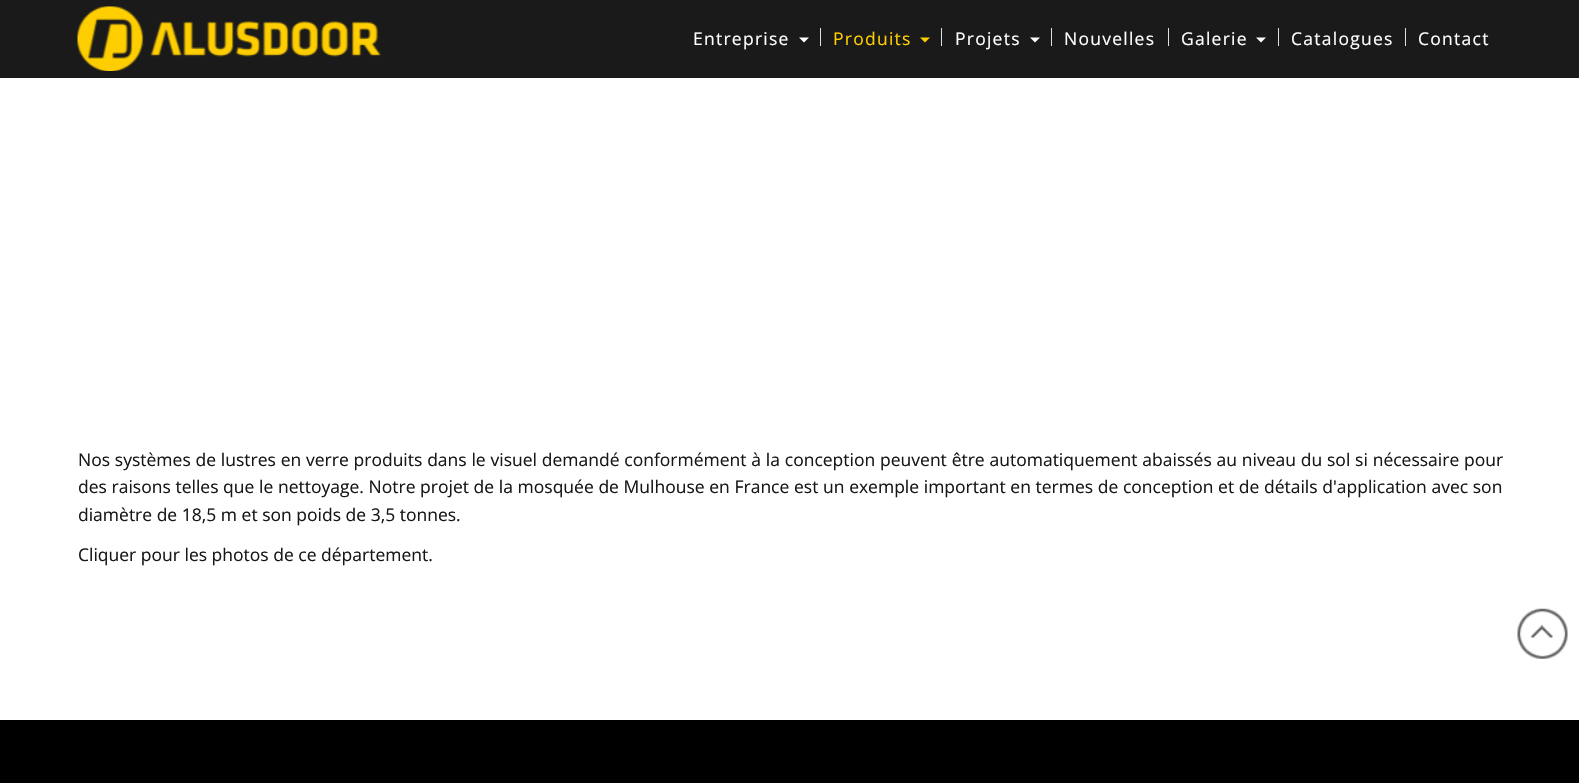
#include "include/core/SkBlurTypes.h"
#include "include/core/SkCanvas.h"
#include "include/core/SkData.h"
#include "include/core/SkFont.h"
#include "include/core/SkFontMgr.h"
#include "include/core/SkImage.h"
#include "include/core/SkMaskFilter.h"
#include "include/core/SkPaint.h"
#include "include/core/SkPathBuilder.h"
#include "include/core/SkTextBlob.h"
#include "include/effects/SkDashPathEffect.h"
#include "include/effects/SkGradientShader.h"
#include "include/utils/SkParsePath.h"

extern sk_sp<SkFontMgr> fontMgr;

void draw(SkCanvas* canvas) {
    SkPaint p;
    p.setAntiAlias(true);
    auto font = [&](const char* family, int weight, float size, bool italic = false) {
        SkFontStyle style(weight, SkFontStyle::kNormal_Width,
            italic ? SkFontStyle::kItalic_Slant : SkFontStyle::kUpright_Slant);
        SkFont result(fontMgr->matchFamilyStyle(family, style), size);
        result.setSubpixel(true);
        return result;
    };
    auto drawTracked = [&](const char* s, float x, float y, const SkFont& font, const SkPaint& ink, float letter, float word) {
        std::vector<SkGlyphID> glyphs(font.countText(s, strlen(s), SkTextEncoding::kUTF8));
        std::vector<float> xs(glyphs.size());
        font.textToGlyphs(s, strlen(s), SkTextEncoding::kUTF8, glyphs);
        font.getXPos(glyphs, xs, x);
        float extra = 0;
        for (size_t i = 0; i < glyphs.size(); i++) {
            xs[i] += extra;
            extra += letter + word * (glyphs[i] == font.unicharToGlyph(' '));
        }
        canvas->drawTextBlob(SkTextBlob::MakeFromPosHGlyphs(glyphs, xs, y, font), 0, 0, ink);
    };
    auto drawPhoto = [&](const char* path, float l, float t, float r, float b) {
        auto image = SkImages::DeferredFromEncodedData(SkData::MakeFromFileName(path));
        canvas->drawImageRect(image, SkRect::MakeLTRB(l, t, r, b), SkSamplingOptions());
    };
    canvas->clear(0xFFFFFFFF);
    p.setColor(0xFF1A1A1A);
    canvas->drawRect(SkRect::MakeLTRB(0, 0, 1579, 78), p);
    drawPhoto("media/1.png", 77, 6, 381, 71);
    auto font1 = font("Open Sans", 400, 17.5f);
    p.setColor(0xFFFFFFFF);
    drawTracked("Entreprise", 693, 45, font1, p, 1.25f, 0);
    canvas->drawPath(SkPathBuilder().moveTo(799, 37.5f).lineTo(809, 37.5f).lineTo(804, 42.5f).close().detach(), p);
    p.setColor(0xFFDDE3E0);
    canvas->drawRect(SkRect::MakeLTRB(820, 28, 821, 46), p);
    p.setColor(0xFFFECE00);
    drawTracked("Produits", 833, 45, font1, p, 1.25f, 0);
    canvas->drawPath(SkPathBuilder().moveTo(920, 37.5f).lineTo(930, 37.5f).lineTo(925, 42.5f).close().detach(), p);
    p.setColor(0xFFDDE3E0);
    canvas->drawRect(SkRect::MakeLTRB(941, 28, 942, 46), p);
    p.setColor(0xFFFFFFFF);
    drawTracked("Projets", 955, 45, font1, p, 1.25f, 0);
    canvas->drawPath(SkPathBuilder().moveTo(1030, 37.5f).lineTo(1040, 37.5f).lineTo(1035, 42.5f).close().detach(), p);
    p.setColor(0xFFDDE3E0);
    canvas->drawRect(SkRect::MakeLTRB(1051, 28, 1052, 46), p);
    p.setColor(0xFFFFFFFF);
    drawTracked("Nouvelles", 1064, 45, font1, p, 1.25f, 0);
    p.setColor(0xFFDDE3E0);
    canvas->drawRect(SkRect::MakeLTRB(1168, 28, 1169, 46), p);
    p.setColor(0xFFFFFFFF);
    drawTracked("Galerie", 1181, 45, font1, p, 1.25f, 0);
    canvas->drawPath(SkPathBuilder().moveTo(1256, 37.5f).lineTo(1266, 37.5f).lineTo(1261, 42.5f).close().detach(), p);
    p.setColor(0xFFDDE3E0);
    canvas->drawRect(SkRect::MakeLTRB(1278, 28, 1279, 46), p);
    p.setColor(0xFFFFFFFF);
    drawTracked("Catalogues", 1291, 45, font1, p, 1.25f, 0);
    p.setColor(0xFFDDE3E0);
    canvas->drawRect(SkRect::MakeLTRB(1405, 28, 1406, 46), p);
    p.setColor(0xFFFFFFFF);
    drawTracked("Contact", 1418, 45, font1, p, 1.25f, 0);
    p.setColor(0xFF171716);
    drawTracked("Nos systèmes de lustres en verre produits dans le visuel demandé conformément à la conception peuvent être automatiquement abaissés au niveau du sol si nécessaire pour", 78, 466, font1, p, 0, 0.25f);
    drawTracked("des raisons telles que le nettoyage. Notre projet de la mosquée de Mulhouse en France est un exemple important en termes de conception et de détails d'application avec son", 78, 493, font1, p, 0, 0.1f);
    canvas->drawString("diamètre de 18,5 m et son poids de 3,5 tonnes.", 78, 521, font1, p);
    canvas->drawString("Cliquer pour les photos de ce département.", 78, 561, font1, p);
    p.setColor(0xFF000000);
    canvas->drawRect(SkRect::MakeLTRB(0, 720, 1579, 783), p);
    drawPhoto("media/2.png", 1517, 608, 1568, 659);
}
